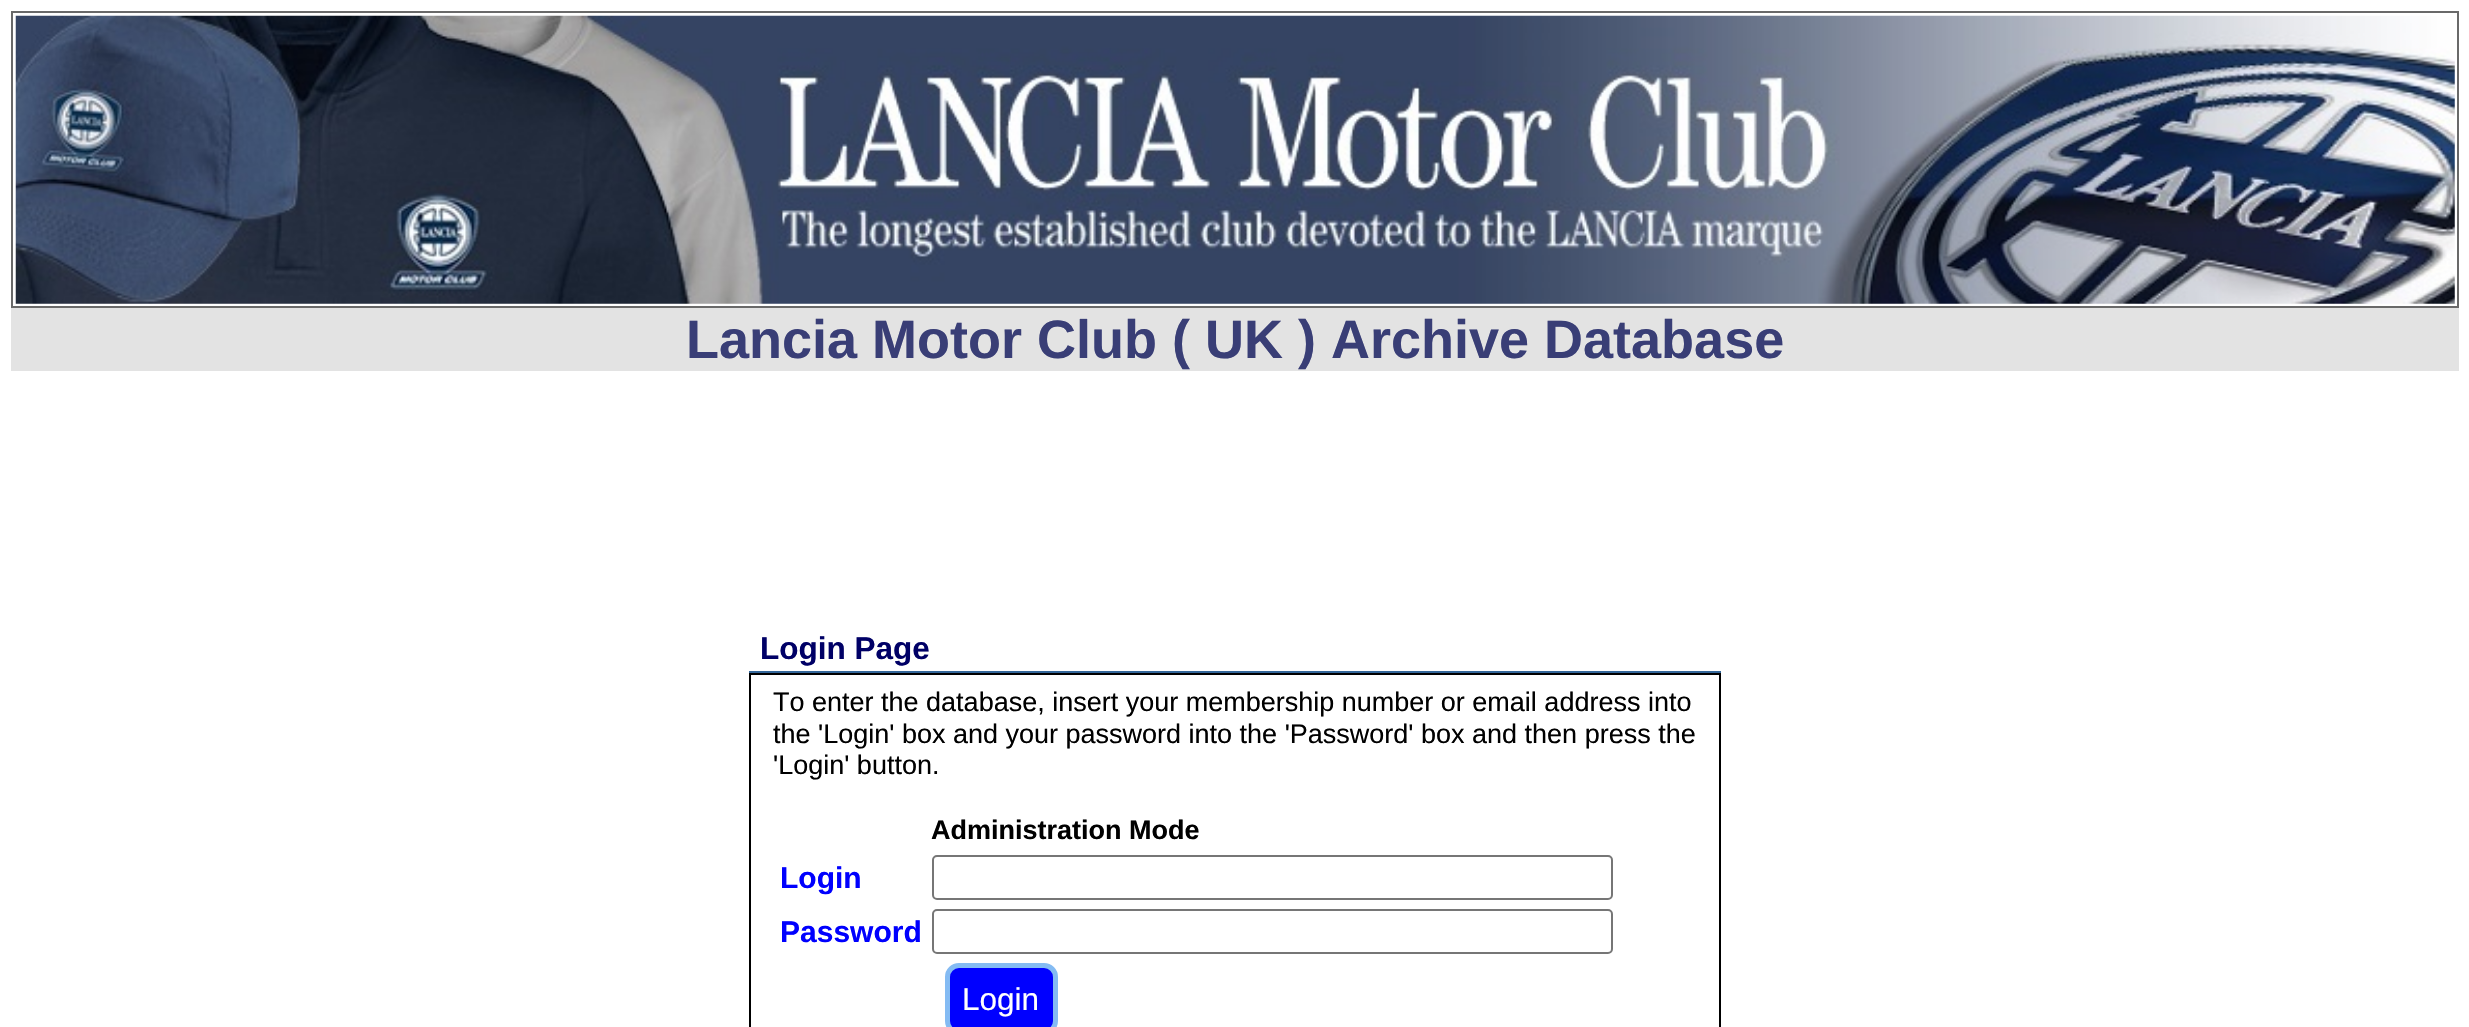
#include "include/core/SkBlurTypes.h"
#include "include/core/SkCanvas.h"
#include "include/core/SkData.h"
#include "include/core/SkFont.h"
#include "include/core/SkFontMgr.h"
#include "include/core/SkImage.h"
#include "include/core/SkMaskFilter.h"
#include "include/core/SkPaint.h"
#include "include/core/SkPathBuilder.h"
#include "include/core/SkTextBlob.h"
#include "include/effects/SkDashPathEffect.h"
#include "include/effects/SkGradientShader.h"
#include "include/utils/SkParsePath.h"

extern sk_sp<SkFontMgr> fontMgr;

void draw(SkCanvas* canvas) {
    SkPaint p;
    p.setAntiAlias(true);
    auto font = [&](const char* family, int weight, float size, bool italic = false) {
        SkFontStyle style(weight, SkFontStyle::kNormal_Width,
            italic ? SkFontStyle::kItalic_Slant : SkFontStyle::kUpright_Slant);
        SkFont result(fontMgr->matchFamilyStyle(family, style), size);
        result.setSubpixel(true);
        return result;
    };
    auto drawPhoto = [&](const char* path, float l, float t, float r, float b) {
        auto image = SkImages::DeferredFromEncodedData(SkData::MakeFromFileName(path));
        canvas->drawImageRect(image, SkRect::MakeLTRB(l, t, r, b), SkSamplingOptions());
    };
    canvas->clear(0xFFFFFFFF);
    p.setStyle(SkPaint::kStroke_Style);
    p.setStrokeWidth(2);
    p.setColor(0xFF696969);
    canvas->drawRect(SkRect::MakeLTRB(12, 12, 2458, 307), p);
    drawPhoto("media/1.png", 15, 15, 2455, 304);
    p.setStyle(SkPaint::kFill_Style);
    p.setColor(0xFFE3E3E3);
    canvas->drawRect(SkRect::MakeLTRB(11, 308, 2459, 371), p);
    auto font1 = font("Liberation Sans", 700, 54);
    p.setColor(0xFF393E76);
    canvas->drawString("Lancia Motor Club ( UK ) Archive Database", 686, 358, font1, p);
    p.setColor(0xFF336699);
    canvas->drawRect(SkRect::MakeLTRB(749, 671, 1721, 673), p);
    auto font2 = font("Liberation Sans", 700, 31.5f);
    p.setColor(0xFF000066);
    canvas->drawString("Login Page", 760, 659, font2, p);
    p.setStyle(SkPaint::kStroke_Style);
    p.setColor(0xFF000000);
    canvas->drawRect(SkRect::MakeLTRB(750, 674, 1720, 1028), p);
    auto font3 = font("Liberation Sans", 400, 27);
    p.setStyle(SkPaint::kFill_Style);
    {
        const struct { const char* s; float x, y; } items[] = {
            {"To enter the database, insert your membership number or email address into", 773, 711},
            {"the 'Login' box and your password into the 'Password' box and then press the", 773, 743},
            {"'Login' button.", 773, 774},
        };
        for (auto [s, x, y] : items) {
            canvas->drawString(s, x, y, font3, p);
        }
    }
    auto font4 = font("Liberation Sans", 700, 27);
    canvas->drawString("Administration Mode", 931, 839, font4, p);
    auto font5 = font("Liberation Sans", 700, 30);
    p.setColor(0xFF0000FE);
    canvas->drawString("Login", 780, 888, font5, p);
    p.setStyle(SkPaint::kStroke_Style);
    p.setColor(0xFF767676);
    canvas->drawRoundRect(SkRect::MakeLTRB(933, 856, 1612, 899), 4, 4, p);
    p.setStyle(SkPaint::kFill_Style);
    p.setColor(0xFF0000FE);
    canvas->drawString("Password", 780, 942, font5, p);
    p.setStyle(SkPaint::kStroke_Style);
    p.setColor(0xFF767676);
    canvas->drawRoundRect(SkRect::MakeLTRB(933, 910, 1612, 953), 4, 4, p);
    p.setStyle(SkPaint::kFill_Style);
    p.setColor(0xFF0000FF);
    canvas->drawRoundRect(SkRect::MakeLTRB(947.5f, 965.5f, 1055.5f, 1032.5f), 11.5f, 11.5f, p);
    p.setStyle(SkPaint::kStroke_Style);
    p.setStrokeWidth(5);
    p.setColor(0xFF84BBF3);
    canvas->drawRoundRect(SkRect::MakeLTRB(947.5f, 965.5f, 1055.5f, 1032.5f), 11.5f, 11.5f, p);
    auto font6 = font("Liberation Sans", 400, 31.5f);
    p.setStyle(SkPaint::kFill_Style);
    p.setColor(0xFFFFFFFF);
    canvas->drawString("Login", 962, 1010, font6, p);
}
